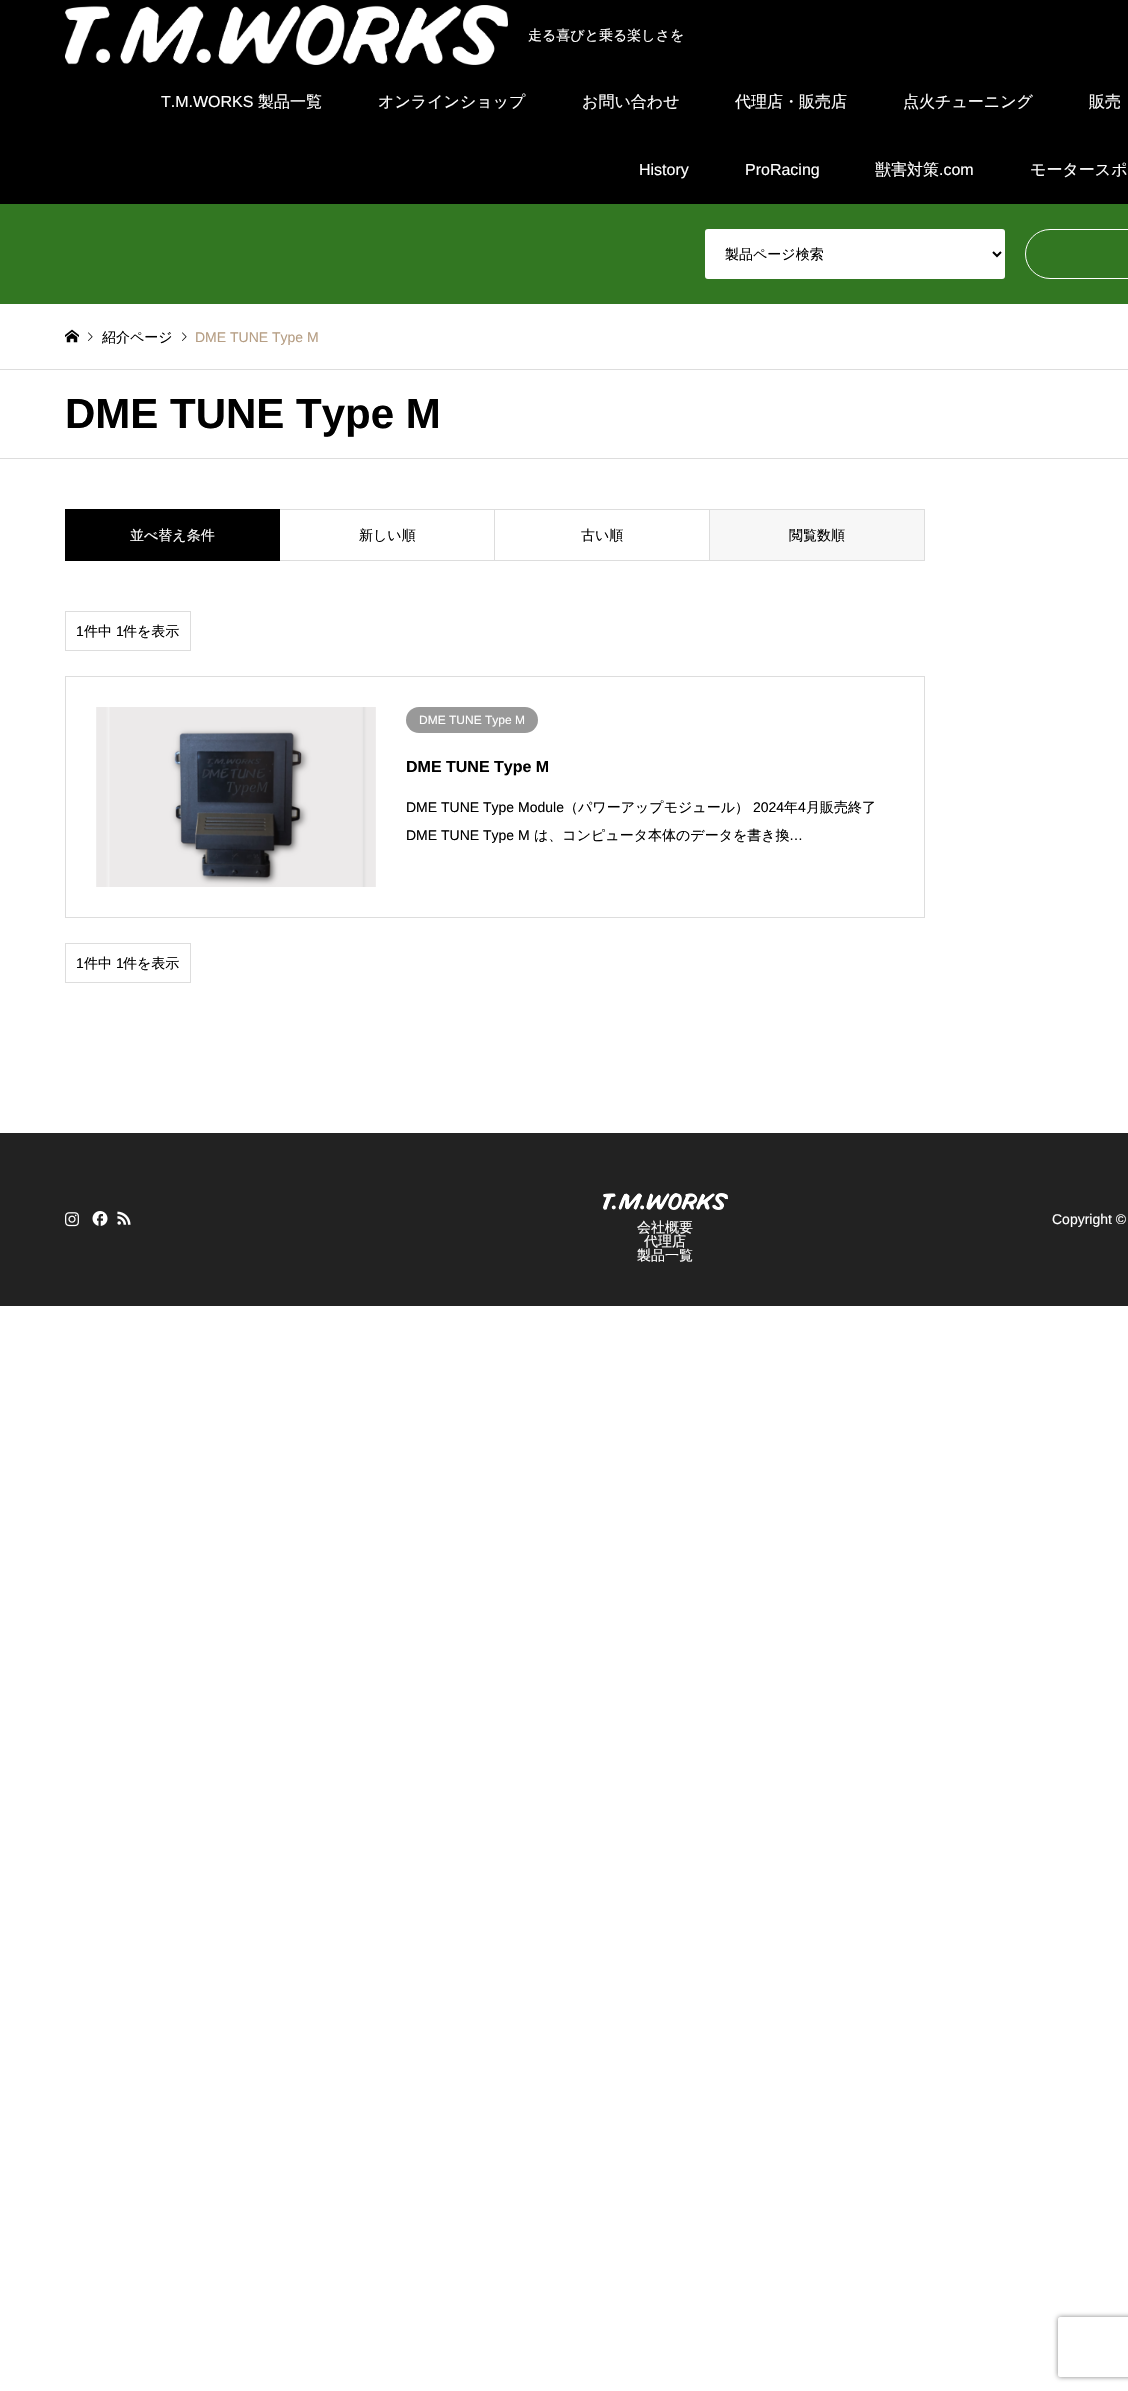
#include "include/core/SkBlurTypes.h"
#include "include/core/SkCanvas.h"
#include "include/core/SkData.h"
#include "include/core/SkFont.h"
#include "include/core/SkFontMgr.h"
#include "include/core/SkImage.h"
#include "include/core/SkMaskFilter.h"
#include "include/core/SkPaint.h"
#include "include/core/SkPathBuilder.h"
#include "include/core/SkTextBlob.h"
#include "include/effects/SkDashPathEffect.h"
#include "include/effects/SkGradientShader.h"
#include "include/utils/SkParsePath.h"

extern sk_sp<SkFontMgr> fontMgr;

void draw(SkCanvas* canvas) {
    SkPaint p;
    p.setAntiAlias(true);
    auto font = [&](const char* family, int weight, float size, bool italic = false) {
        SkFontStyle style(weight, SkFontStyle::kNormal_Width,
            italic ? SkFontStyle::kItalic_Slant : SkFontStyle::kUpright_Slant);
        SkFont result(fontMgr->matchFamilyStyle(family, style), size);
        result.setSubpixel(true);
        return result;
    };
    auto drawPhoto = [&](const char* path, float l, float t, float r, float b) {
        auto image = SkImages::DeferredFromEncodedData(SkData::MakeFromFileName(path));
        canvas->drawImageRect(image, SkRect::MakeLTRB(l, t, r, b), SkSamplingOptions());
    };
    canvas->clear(0xFFFFFFFF);
    p.setColor(0xFF000000);
    canvas->drawRect(SkRect::MakeLTRB(0, 0, 1128, 204), p);
    drawPhoto("media/1.png", 65, 5, 508, 65);
    auto font1 = font("WenQuanYi Zen Hei", 500, 14);
    p.setColor(0xFFFFFFFF);
    canvas->drawString("走る喜びと乗る楽しさを", 528, 40, font1, p);
    auto font2 = font("Liberation Sans", 400, 16);
    canvas->drawString("T.M.WORKS", 161, 107, font2, p);
    auto font3 = font("WenQuanYi Zen Hei", 500, 16);
    {
        const struct { const char* s; float x, y; } items[] = {
            {"製品一覧", 258, 107},
            {"オンラインショップ", 378, 107},
            {"お問い合わせ", 582, 107},
            {"代理店・販売店", 735, 107},
            {"点火チューニング", 903, 107},
            {"販売", 1089, 107},
        };
        for (auto [s, x, y] : items) {
            canvas->drawString(s, x, y, font3, p);
        }
    }
    canvas->drawString("History", 639, 175, font2, p);
    canvas->drawString("ProRacing", 745, 175, font2, p);
    canvas->drawString("獣害対策", 875, 175, font3, p);
    canvas->drawString(".com", 939, 175, font2, p);
    canvas->drawString("モータースポ", 1030, 175, font3, p);
    p.setColor(0xFF327722);
    canvas->drawRect(SkRect::MakeLTRB(0, 204, 1128, 304), p);
    p.setColor(0xFFFFFFFF);
    canvas->drawRoundRect(SkRect::MakeLTRB(705, 229, 1005, 279), 3, 3, p);
    p.setStyle(SkPaint::kStroke_Style);
    p.setStrokeWidth(2);
    p.setColor(0xFF000000);
    canvas->drawPath(SkPathBuilder().moveTo(993, 252).lineTo(997, 256).lineTo(1001, 252).detach(), p);
    p.setStyle(SkPaint::kFill_Style);
    canvas->drawString("製品ページ検索", 725, 259, font1, p);
    p.setStyle(SkPaint::kStroke_Style);
    p.setStrokeWidth(1);
    p.setColor(0xFFFFFFFF);
    canvas->drawRoundRect(SkRect::MakeLTRB(1025.5f, 229.5f, 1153.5f, 278.5f), 24.5f, 24.5f, p);
    p.setStyle(SkPaint::kFill_Style);
    p.setColor(0xFFDDDDDD);
    canvas->drawRect(SkRect::MakeLTRB(0, 369, 1128, 370), p);
    drawPhoto("media/2.png", 65, 329, 79, 343);
    drawPhoto("media/3.png", 88, 332, 93, 341);
    p.setColor(0xFF000000);
    canvas->drawString("紹介ページ", 102, 342, font1, p);
    drawPhoto("media/3.png", 182, 332, 187, 341);
    auto font4 = font("Liberation Sans", 400, 14);
    p.setColor(0xFFB69E84);
    canvas->drawString("DME TUNE Type M", 195, 342, font4, p);
    p.setColor(0xFFDDDDDD);
    canvas->drawRect(SkRect::MakeLTRB(0, 458, 1128, 459), p);
    auto font5 = font("Liberation Sans", 700, 42);
    p.setColor(0xFF000000);
    canvas->drawString("DME TUNE Type M", 65, 428, font5, p);
    canvas->drawRect(SkRect::MakeLTRB(65, 509, 280, 561), p);
    p.setColor(0xFFFFFFFF);
    canvas->drawString("並べ替え条件", 130, 540, font1, p);
    {
        const struct { float l, t, r, b; SkColor color; } items[] = {
            {280, 509, 925, 510, 0xFFDDDDDD},
            {494, 509, 495, 561, 0xFFDDDDDD},
            {280, 560, 495, 561, 0xFFDDDDDD},
        };
        for (auto [l, t, r, b, color] : items) {
            p.setColor(color);
            canvas->drawRect(SkRect::MakeLTRB(l, t, r, b), p);
        }
    }
    p.setColor(0xFF000000);
    canvas->drawString("新しい順", 359, 540, font1, p);
    p.setColor(0xFFDDDDDD);
    canvas->drawRect(SkRect::MakeLTRB(709, 509, 710, 561), p);
    canvas->drawRect(SkRect::MakeLTRB(495, 560, 710, 561), p);
    p.setColor(0xFF000000);
    canvas->drawString("古い順", 581, 540, font1, p);
    {
        const struct { float l, t, r, b; SkColor color; } items[] = {
            {710, 510, 924, 560, 0xFFF7F7F7},
            {924, 509, 925, 561, 0xFFDDDDDD},
            {710, 560, 925, 561, 0xFFDDDDDD},
        };
        for (auto [l, t, r, b, color] : items) {
            p.setColor(color);
            canvas->drawRect(SkRect::MakeLTRB(l, t, r, b), p);
        }
    }
    p.setColor(0xFF000000);
    canvas->drawString("閲覧数順", 789, 540, font1, p);
    p.setStyle(SkPaint::kStroke_Style);
    p.setColor(0xFFDDDDDD);
    canvas->drawRect(SkRect::MakeLTRB(65.5f, 611.5f, 190.5f, 650.5f), p);
    p.setStyle(SkPaint::kFill_Style);
    p.setColor(0xFF000000);
    canvas->drawString("1", 76, 636, font4, p);
    canvas->drawString("件中", 84, 636, font1, p);
    canvas->drawString("1", 116, 636, font4, p);
    canvas->drawString("件を表示", 123, 636, font1, p);
    p.setStyle(SkPaint::kStroke_Style);
    p.setColor(0xFFDDDDDD);
    canvas->drawRect(SkRect::MakeLTRB(65.5f, 676.5f, 924.5f, 917.5f), p);
    drawPhoto("media/4.png", 96, 707, 376, 887);
    p.setStyle(SkPaint::kFill_Style);
    p.setColor(0xFF999999);
    canvas->drawRoundRect(SkRect::MakeLTRB(406, 707, 538, 733), 13, 13, p);
    auto font6 = font("Liberation Sans", 400, 12);
    p.setColor(0xFFFFFFFF);
    canvas->drawString("DME TUNE Type M", 419, 724, font6, p);
    auto font7 = font("Liberation Sans", 700, 16);
    p.setColor(0xFF000000);
    canvas->drawString("DME TUNE Type M", 406, 772, font7, p);
    canvas->drawString("DME TUNE Type Module", 406, 812, font4, p);
    canvas->drawString("（パワーアップモジュール）", 564, 812, font1, p);
    canvas->drawString("2024", 753, 812, font4, p);
    canvas->drawString("年", 784, 812, font1, p);
    canvas->drawString("4", 798, 812, font4, p);
    canvas->drawString("月販売終了", 806, 812, font1, p);
    canvas->drawString("DME TUNE Type M", 406, 840, font4, p);
    canvas->drawString("は、コンピュータ本体のデータを書き換", 534, 840, font1, p);
    canvas->drawString("…", 789, 840, font4, p);
    p.setStyle(SkPaint::kStroke_Style);
    p.setColor(0xFFDDDDDD);
    canvas->drawRect(SkRect::MakeLTRB(65.5f, 943.5f, 190.5f, 982.5f), p);
    p.setStyle(SkPaint::kFill_Style);
    p.setColor(0xFF000000);
    canvas->drawString("1", 76, 968, font4, p);
    canvas->drawString("件中", 84, 968, font1, p);
    canvas->drawString("1", 116, 968, font4, p);
    canvas->drawString("件を表示", 123, 968, font1, p);
    p.setColor(0xFF222222);
    canvas->drawRect(SkRect::MakeLTRB(0, 1133, 1128, 1306), p);
    drawPhoto("media/5.png", 603, 1193, 728, 1210);
    drawPhoto("media/6.png", 65, 1212, 79, 1227);
    drawPhoto("media/7.png", 92, 1211, 108, 1226);
    drawPhoto("media/8.png", 117, 1211, 131, 1225);
    p.setColor(0xFFFFFFFF);
    {
        const struct { const char* s; float x, y; } items[] = {
            {"会社概要", 637, 1232},
            {"代理店", 644, 1246},
            {"製品一覧", 637, 1260},
        };
        for (auto [s, x, y] : items) {
            canvas->drawString(s, x, y, font1, p);
        }
    }
    canvas->drawString("Copyright ©", 1052, 1224, font4, p);
    canvas->save();
    canvas->clipPath(SkPathBuilder(SkPathFillType::kEvenOdd).moveTo(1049, 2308).lineTo(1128, 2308).lineTo(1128, 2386).lineTo(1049, 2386).close().moveTo(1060, 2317).lineTo(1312, 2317).cubicTo(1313, 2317, 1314, 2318, 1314, 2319).lineTo(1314, 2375).cubicTo(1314, 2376, 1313, 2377, 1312, 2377).lineTo(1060, 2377).cubicTo(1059, 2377, 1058, 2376, 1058, 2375).lineTo(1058, 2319).cubicTo(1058, 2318, 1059, 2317, 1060, 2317).close().detach(), true);
    p.setColor(0xFF808080);
    p.setMaskFilter(SkMaskFilter::MakeBlur(kNormal_SkBlurStyle, 2.5f));
    canvas->drawRoundRect(SkRect::MakeLTRB(1058, 2317, 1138, 2377), 2, 2, p);
    p.setMaskFilter(nullptr);
    canvas->restore();
}
